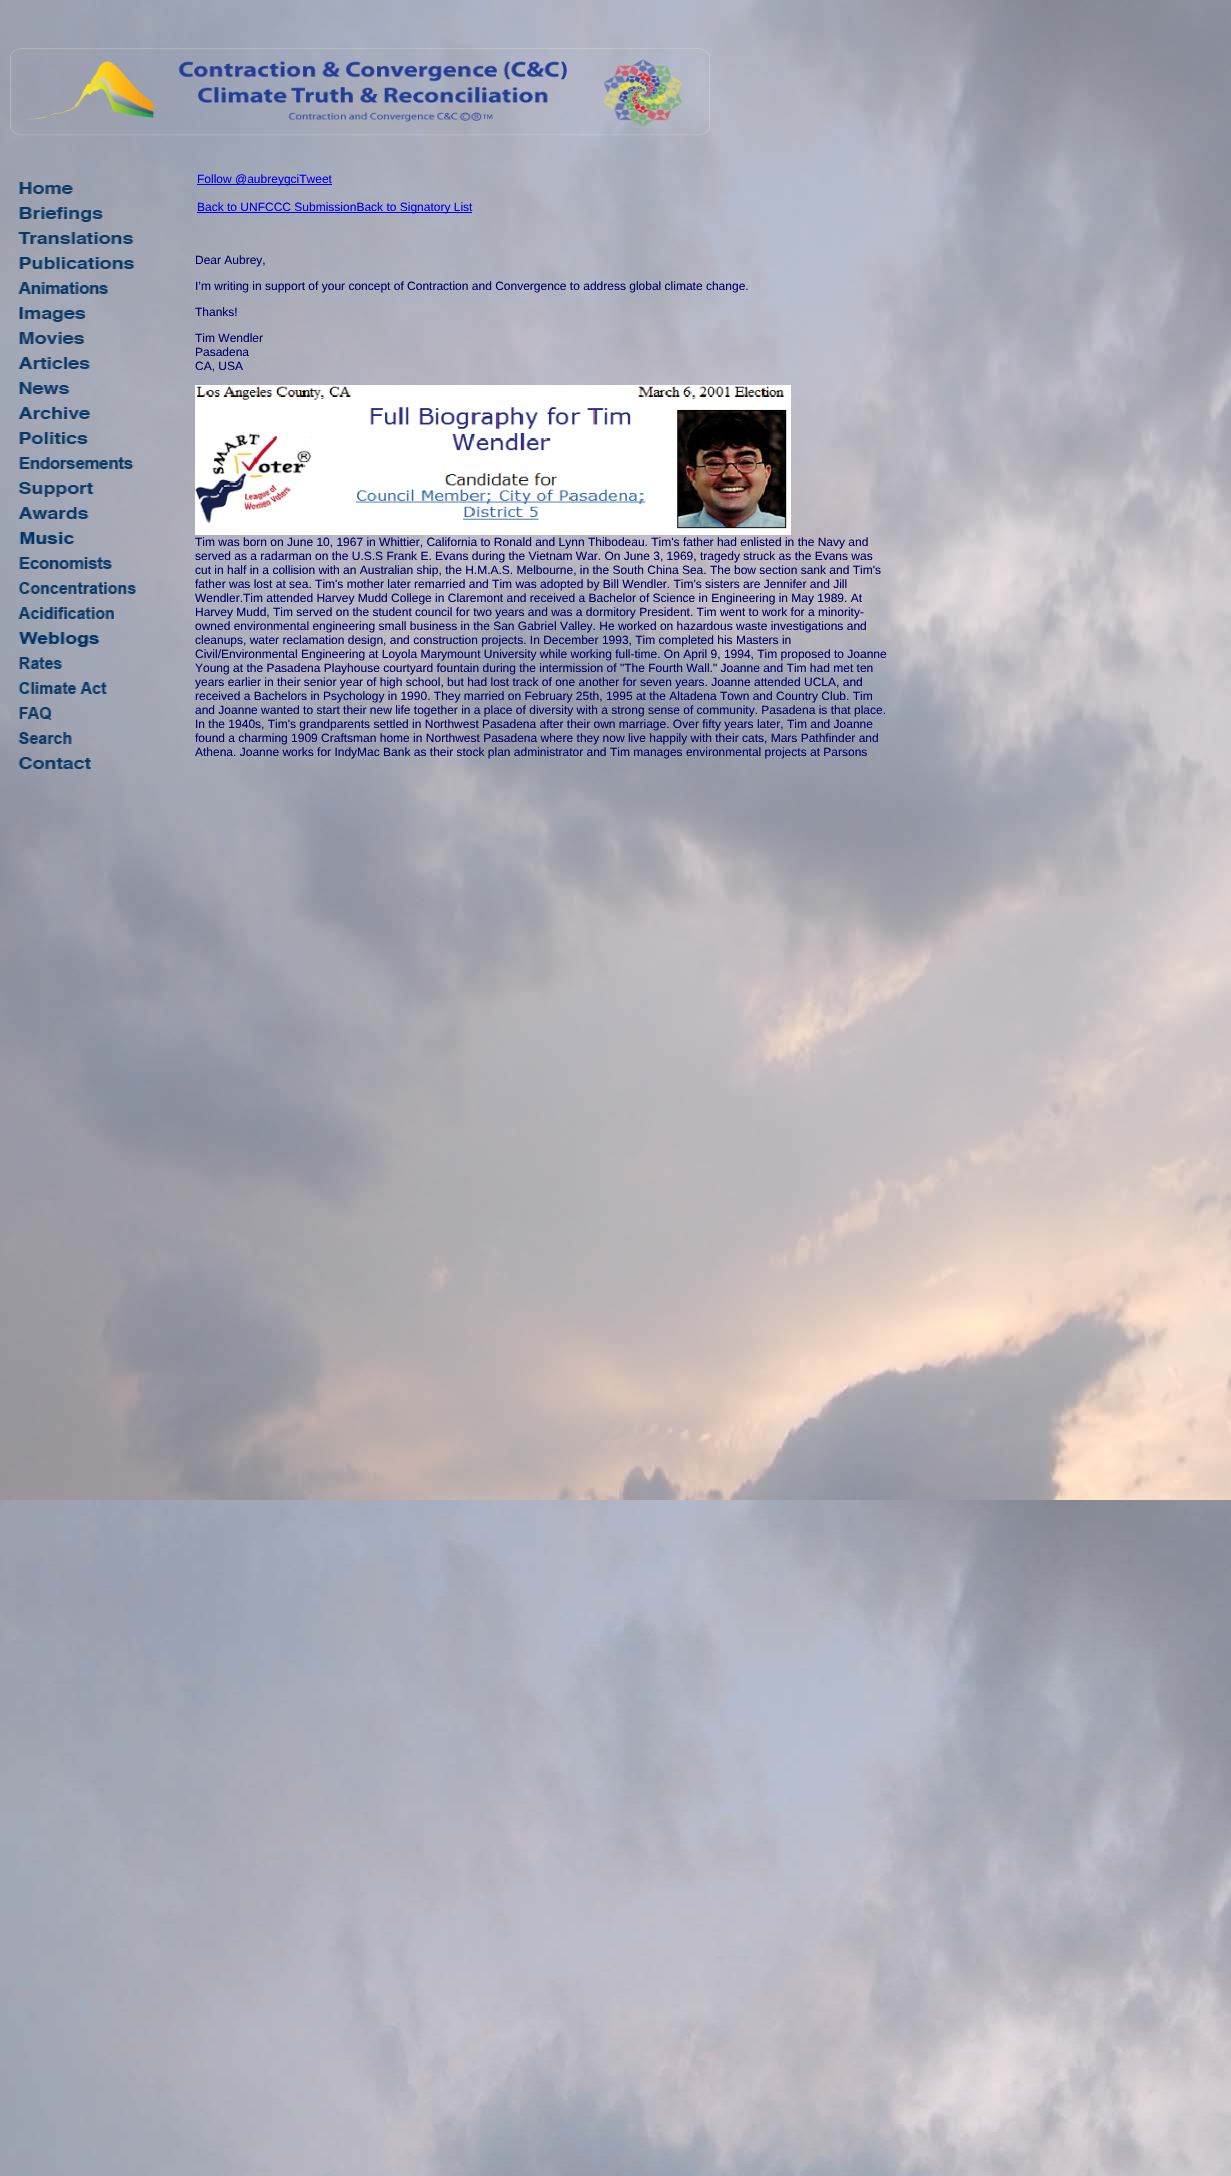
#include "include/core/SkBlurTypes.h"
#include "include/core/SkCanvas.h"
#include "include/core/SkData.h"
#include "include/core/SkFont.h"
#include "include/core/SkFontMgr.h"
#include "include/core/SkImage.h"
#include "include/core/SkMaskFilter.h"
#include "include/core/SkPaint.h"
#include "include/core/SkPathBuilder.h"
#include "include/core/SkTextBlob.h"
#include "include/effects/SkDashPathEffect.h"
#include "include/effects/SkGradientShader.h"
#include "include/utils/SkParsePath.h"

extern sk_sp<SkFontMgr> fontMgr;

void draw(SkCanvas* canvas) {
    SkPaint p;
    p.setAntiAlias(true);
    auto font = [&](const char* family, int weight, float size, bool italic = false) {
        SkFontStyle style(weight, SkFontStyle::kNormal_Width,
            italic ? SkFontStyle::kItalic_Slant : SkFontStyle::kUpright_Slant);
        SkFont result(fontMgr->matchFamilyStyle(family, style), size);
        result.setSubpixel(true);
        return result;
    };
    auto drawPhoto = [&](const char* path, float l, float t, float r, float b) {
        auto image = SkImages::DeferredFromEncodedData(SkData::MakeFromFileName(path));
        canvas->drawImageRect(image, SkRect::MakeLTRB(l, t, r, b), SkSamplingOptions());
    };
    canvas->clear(0xFFFFFFFF);
    drawPhoto("media/1.png", 0, 0, 1231, 2176);
    drawPhoto("media/2.png", 10, 48, 710, 136);
    drawPhoto("media/3.png", 19, 182, 73, 194);
    drawPhoto("media/4.png", 19, 207, 103, 222);
    drawPhoto("media/5.png", 18, 232, 134, 244);
    drawPhoto("media/6.png", 19, 257, 135, 269);
    drawPhoto("media/7.png", 18, 282, 108, 294);
    drawPhoto("media/8.png", 19, 307, 86, 322);
    drawPhoto("media/9.png", 19, 332, 85, 344);
    drawPhoto("media/10.png", 18, 357, 90, 369);
    drawPhoto("media/11.png", 19, 382, 70, 394);
    drawPhoto("media/12.png", 18, 407, 90, 419);
    drawPhoto("media/13.png", 19, 432, 88, 444);
    drawPhoto("media/14.png", 19, 457, 134, 469);
    drawPhoto("media/15.png", 18, 482, 94, 497);
    drawPhoto("media/16.png", 18, 507, 89, 519);
    drawPhoto("media/17.png", 19, 532, 75, 544);
    drawPhoto("media/18.png", 19, 557, 112, 569);
    drawPhoto("media/19.png", 18, 582, 136, 594);
    drawPhoto("media/20.png", 18, 607, 114, 619);
    drawPhoto("media/21.png", 18, 632, 100, 647);
    drawPhoto("media/22.png", 19, 657, 63, 669);
    drawPhoto("media/23.png", 18, 682, 107, 694);
    drawPhoto("media/24.png", 19, 707, 52, 720);
    drawPhoto("media/25.png", 18, 732, 72, 744);
    drawPhoto("media/26.png", 18, 757, 91, 769);
    p.setColor(0xFF0000EE);
    canvas->drawRect(SkRect::MakeLTRB(197, 184, 332, 185), p);
    auto font1 = font("Liberation Sans", 400, 12);
    canvas->drawString("Follow @aubreygciTweet", 197, 183, font1, p);
    canvas->drawRect(SkRect::MakeLTRB(197, 212, 472, 213), p);
    canvas->drawString("Back to UNFCCC SubmissionBack to Signatory List", 197, 211, font1, p);
    p.setColor(0xFF000066);
    {
        const struct { const char* s; float x, y; } items[] = {
            {"Dear Aubrey,", 195, 264},
            {"I’m writing in support of your concept of Contraction and Convergence to address global climate change.", 195, 290},
            {"Thanks!", 195, 316},
            {"Tim Wendler", 195, 342},
            {"Pasadena", 195, 356},
            {"CA, USA", 195, 370},
        };
        for (auto [s, x, y] : items) {
            canvas->drawString(s, x, y, font1, p);
        }
    }
    drawPhoto("media/27.png", 195, 385, 791, 535);
    {
        const struct { const char* s; float x, y; } items[] = {
            {"Tim was born on June 10, 1967 in Whittier, California to Ronald and Lynn Thibodeau. Tim's father had enlisted in the Navy and", 195, 546},
            {"served as a radarman on the U.S.S Frank E. Evans during the Vietnam War. On June 3, 1969, tragedy struck as the Evans was", 195, 560},
            {"cut in half in a collision with an Australian ship, the H.M.A.S. Melbourne, in the South China Sea. The bow section sank and Tim's", 195, 574},
            {"father was lost at sea. Tim's mother later remarried and Tim was adopted by Bill Wendler. Tim's sisters are Jennifer and Jill", 195, 588},
            {"Wendler.Tim attended Harvey Mudd College in Claremont and received a Bachelor of Science in Engineering in May 1989. At", 195, 602},
            {"Harvey Mudd, Tim served on the student council for two years and was a dormitory President. Tim went to work for a minority-", 195, 616},
            {"owned environmental engineering small business in the San Gabriel Valley. He worked on hazardous waste investigations and", 195, 630},
            {"cleanups, water reclamation design, and construction projects. In December 1993, Tim completed his Masters in", 195, 644},
            {"Civil/Environmental Engineering at Loyola Marymount University while working full-time. On April 9, 1994, Tim proposed to Joanne", 195, 658},
            {"Young at the Pasadena Playhouse courtyard fountain during the intermission of \"The Fourth Wall.\" Joanne and Tim had met ten", 195, 672},
            {"years earlier in their senior year of high school, but had lost track of one another for seven years. Joanne attended UCLA, and", 195, 686},
            {"received a Bachelors in Psychology in 1990. They married on February 25th, 1995 at the Altadena Town and Country Club. Tim", 195, 700},
            {"and Joanne wanted to start their new life together in a place of diversity with a strong sense of community. Pasadena is that place.", 195, 714},
            {"In the 1940s, Tim's grandparents settled in Northwest Pasadena after their own marriage. Over fifty years later, Tim and Joanne", 195, 728},
            {"found a charming 1909 Craftsman home in Northwest Pasadena where they now live happily with their cats, Mars Pathfinder and", 195, 742},
            {"Athena. Joanne works for IndyMac Bank as their stock plan administrator and Tim manages environmental projects at Parsons", 195, 756},
        };
        for (auto [s, x, y] : items) {
            canvas->drawString(s, x, y, font1, p);
        }
    }
}
